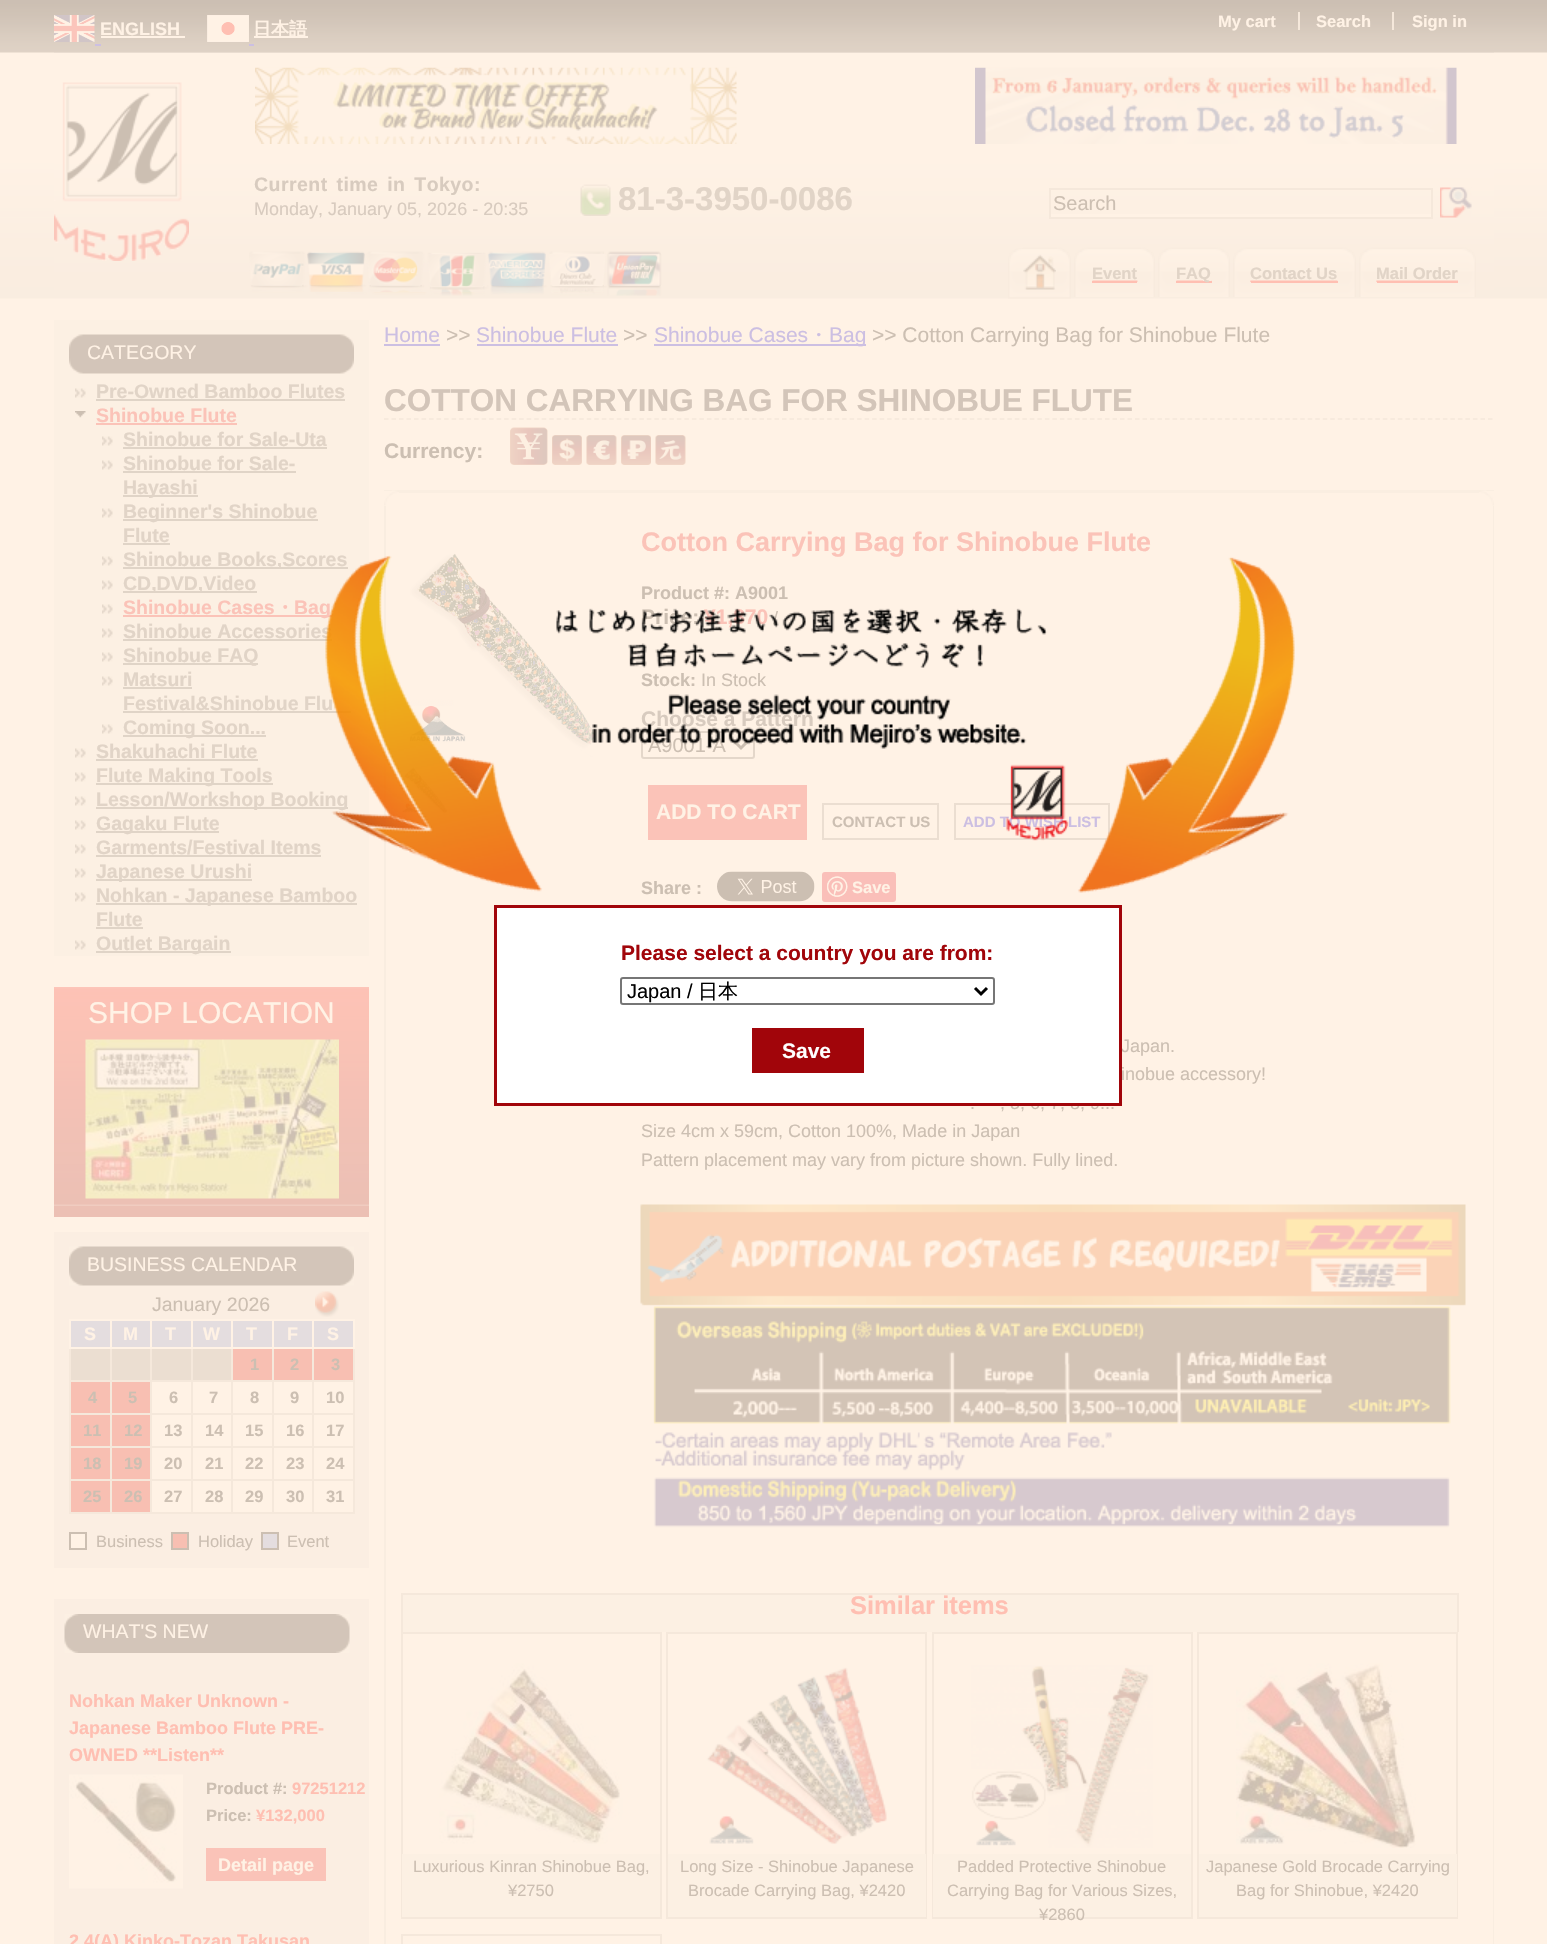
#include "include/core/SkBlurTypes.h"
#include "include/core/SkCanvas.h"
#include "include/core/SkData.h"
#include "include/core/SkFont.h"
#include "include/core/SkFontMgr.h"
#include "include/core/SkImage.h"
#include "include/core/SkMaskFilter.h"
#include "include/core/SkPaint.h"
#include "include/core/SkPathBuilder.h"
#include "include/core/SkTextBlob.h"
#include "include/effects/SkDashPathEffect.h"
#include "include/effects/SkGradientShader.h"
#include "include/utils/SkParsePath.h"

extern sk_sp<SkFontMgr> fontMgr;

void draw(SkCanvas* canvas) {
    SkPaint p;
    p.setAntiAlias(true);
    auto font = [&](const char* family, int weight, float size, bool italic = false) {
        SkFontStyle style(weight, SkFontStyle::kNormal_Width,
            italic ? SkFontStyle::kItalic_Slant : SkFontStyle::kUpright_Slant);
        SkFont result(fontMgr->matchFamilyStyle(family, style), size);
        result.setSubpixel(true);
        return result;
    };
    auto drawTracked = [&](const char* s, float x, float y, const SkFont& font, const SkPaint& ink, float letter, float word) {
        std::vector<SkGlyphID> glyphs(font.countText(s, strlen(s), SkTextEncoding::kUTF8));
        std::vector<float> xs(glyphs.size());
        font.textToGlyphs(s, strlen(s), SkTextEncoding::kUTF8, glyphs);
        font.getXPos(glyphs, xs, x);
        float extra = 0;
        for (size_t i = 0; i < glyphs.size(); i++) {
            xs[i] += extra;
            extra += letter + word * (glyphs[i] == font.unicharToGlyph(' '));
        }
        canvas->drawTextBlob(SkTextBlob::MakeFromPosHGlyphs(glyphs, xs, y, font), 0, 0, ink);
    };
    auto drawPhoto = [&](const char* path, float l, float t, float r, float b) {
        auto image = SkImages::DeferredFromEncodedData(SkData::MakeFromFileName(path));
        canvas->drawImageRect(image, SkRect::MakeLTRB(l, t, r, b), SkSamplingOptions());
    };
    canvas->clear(0xFFFFF2E5);
    drawPhoto("media/1.png", 0, 0, 1547, 299);
    p.setColor(0xFFEADDD1);
    canvas->drawRect(SkRect::MakeLTRB(54, 52, 1494, 53), p);
    drawPhoto("media/2.png", 54, 15, 95, 42);
    auto font1 = font("Liberation Sans", 700, 18);
    p.setColor(0xFFFFF2E5);
    canvas->drawString("ENGLISH", 100, 35, font1, p);
    canvas->drawRect(SkRect::MakeLTRB(101, 36, 185, 38), p);
    drawPhoto("media/3.png", 207, 15, 249, 42);
    canvas->drawRect(SkRect::MakeLTRB(254, 36, 308, 38), p);
    auto font2 = font("WenQuanYi Zen Hei", 700, 18);
    canvas->drawString("日本語", 253, 35, font2, p);
    {
        const struct { float l, t, r, b; SkColor color; } items[] = {
            {95, 44, 101, 46, 0xFFCCBFE2},
            {249, 44, 254, 46, 0xFFCCBFE2},
            {1298, 12, 1300, 30, 0xFFF5E8DB},
        };
        for (auto [l, t, r, b, color] : items) {
            p.setColor(color);
            canvas->drawRect(SkRect::MakeLTRB(l, t, r, b), p);
        }
    }
    auto font3 = font("Liberation Sans", 700, 16.5f);
    p.setColor(0xFFFFF2E5);
    canvas->drawString("My cart", 1218, 27, font3, p);
    p.setColor(0xFFF5E8DB);
    canvas->drawRect(SkRect::MakeLTRB(1392, 12, 1394, 30), p);
    p.setColor(0xFFFFF2E5);
    canvas->drawString("Search", 1316, 27, font3, p);
    canvas->drawString("Sign in", 1412, 27, font3, p);
    drawPhoto("media/4.png", 54, 53, 1494, 300);
    drawPhoto("media/5.png", 54, 82, 189, 261);
    drawPhoto("media/6.png", 255, 67, 737, 144);
    drawPhoto("media/7.png", 975, 67, 1457, 144);
    auto font4 = font("Liberation Sans", 700, 19.5f);
    p.setColor(0xFFD8CBBF);
    drawTracked("Current time in Tokyo:", 254, 191, font4, p, 0.45f, 3);
    auto font5 = font("Liberation Sans", 400, 18);
    canvas->drawString("Monday, January 05, 2026 - 20:35", 254, 215, font5, p);
    drawPhoto("media/8.png", 580, 184, 611, 216);
    auto font6 = font("Liberation Sans", 700, 33);
    p.setColor(0xFFE1D4C7);
    canvas->drawString("81-3-3950-0086", 618, 210, font6, p);
    p.setColor(0xFFFFF2E5);
    canvas->drawRect(SkRect::MakeLTRB(1051, 214, 1431, 217), p);
    p.setStyle(SkPaint::kStroke_Style);
    p.setStrokeWidth(2);
    p.setColor(0xFFF5E8DB);
    canvas->drawRect(SkRect::MakeLTRB(1050, 189, 1432, 218), p);
    auto font7 = font("Liberation Sans", 400, 20);
    p.setStyle(SkPaint::kFill_Style);
    p.setColor(0xFFCCBFB2);
    canvas->drawString("Search", 1053, 210, font7, p);
    drawPhoto("media/9.png", 1440, 187, 1472, 218);
    drawPhoto("media/10.png", 249, 251, 662, 296);
    drawPhoto("media/11.png", 1008, 248, 1023, 299);
    drawPhoto("media/12.png", 1023, 247, 1071, 299);
    drawPhoto("media/13.png", 1023, 254, 1056, 290);
    drawPhoto("media/14.png", 1074, 247, 1089, 297);
    drawPhoto("media/15.png", 1089, 247, 1155, 297);
    p.setColor(0xFFE1D4C7);
    canvas->drawString("Event", 1092, 279, font3, p);
    p.setColor(0xFFFFBFB2);
    canvas->drawRect(SkRect::MakeLTRB(1092, 281, 1137, 283), p);
    drawPhoto("media/14.png", 1158, 247, 1173, 297);
    drawPhoto("media/16.png", 1173, 247, 1230, 297);
    canvas->drawRect(SkRect::MakeLTRB(1176, 281, 1212, 283), p);
    p.setColor(0xFFE1D4C7);
    canvas->drawString("FAQ", 1176, 279, font3, p);
    drawPhoto("media/14.png", 1233, 247, 1248, 297);
    drawPhoto("media/17.png", 1248, 247, 1356, 297);
    canvas->drawString("Contact Us", 1250, 279, font3, p);
    p.setColor(0xFFFFBFB2);
    canvas->drawRect(SkRect::MakeLTRB(1251, 281, 1338, 283), p);
    drawPhoto("media/14.png", 1359, 247, 1374, 297);
    drawPhoto("media/18.png", 1374, 247, 1476, 297);
    p.setColor(0xFFE1D4C7);
    canvas->drawString("Mail Order", 1376, 279, font3, p);
    p.setColor(0xFFFFBFB2);
    canvas->drawRect(SkRect::MakeLTRB(1377, 282, 1458, 283), p);
    auto font8 = font("Liberation Sans", 400, 21);
    p.setColor(0xFFCCBFE2);
    canvas->drawString("Home", 384, 342, font8, p);
    canvas->drawRect(SkRect::MakeLTRB(384, 344, 440, 346), p);
    p.setColor(0xFFCCBFB2);
    canvas->drawString(">>", 446, 342, font8, p);
    p.setColor(0xFFCCBFE2);
    canvas->drawString("Shinobue Flute", 476, 342, font8, p);
    canvas->drawRect(SkRect::MakeLTRB(477, 344, 618, 346), p);
    p.setColor(0xFFCCBFB2);
    canvas->drawString(">>", 623, 342, font8, p);
    p.setColor(0xFFCCBFE2);
    canvas->drawString("Shinobue Cases", 654, 342, font8, p);
    auto font9 = font("WenQuanYi Zen Hei", 500, 21);
    canvas->drawString("・", 808, 342, font9, p);
    canvas->drawRect(SkRect::MakeLTRB(654, 344, 866, 346), p);
    canvas->drawString("Bag", 829, 342, font8, p);
    p.setColor(0xFFCCBFB2);
    canvas->drawString(">> Cotton Carrying Bag for Shinobue Flute", 872, 342, font8, p);
    p.setStyle(SkPaint::kStroke_Style);
    p.setStrokeWidth(1.5f);
    p.setColor(0xFFF5E8DB);
    p.setPathEffect(SkDashPathEffect::Make({{4.5f, 3.01f}}, 0));
    canvas->drawPath(SkPathBuilder().moveTo(384, 419).lineTo(1494, 419).detach(), p);
    p.setPathEffect(nullptr);
    auto font10 = font("Liberation Sans", 700, 31.5f);
    p.setStyle(SkPaint::kFill_Style);
    p.setColor(0xFFD3C5B9);
    canvas->drawString("COTTON CARRYING BAG FOR SHINOBUE FLUTE", 384, 411, font10, p);
    auto font11 = font("Liberation Sans", 700, 21);
    p.setColor(0xFFCCBFB2);
    canvas->drawString("Currency:", 384, 458, font11, p);
    drawPhoto("media/19.png", 510, 427, 548, 465);
    drawPhoto("media/20.png", 552, 435, 582, 465);
    drawPhoto("media/21.png", 586, 435, 617, 465);
    drawPhoto("media/22.png", 621, 435, 651, 465);
    drawPhoto("media/23.png", 655, 435, 686, 465);
    p.setColor(0xFFFAEEE1);
    canvas->drawRect(SkRect::MakeLTRB(384, 490, 1494, 493), p);
    p.setColor(0xFFFFF2E5);
    canvas->drawRect(SkRect::MakeLTRB(384, 491, 399, 493), p);
    drawPhoto("media/24.png", 384, 490, 399, 506);
    canvas->drawRect(SkRect::MakeLTRB(1479, 491, 1494, 493), p);
    drawPhoto("media/25.png", 1479, 490, 1494, 506);
    p.setColor(0xFFF9EDE0);
    canvas->drawRect(SkRect::MakeLTRB(1493, 506, 1494, 1944), p);
    canvas->drawRect(SkRect::MakeLTRB(384, 506, 386, 1944), p);
    drawPhoto("media/26.png", 410, 553, 596, 757);
    drawPhoto("media/27.png", 402, 767, 447, 814);
    auto font12 = font("Liberation Sans", 700, 27);
    p.setColor(0xFFFBC3B8);
    canvas->drawString("Cotton Carrying Bag for Shinobue Flute", 641, 551, font12, p);
    p.setColor(0xFFCCBFB2);
    canvas->drawString("Product #: A9001", 641, 599, font1, p);
    canvas->drawString("Price:", 641, 624, font11, p);
    p.setColor(0xFFFBC3B8);
    canvas->drawString("¥1,870", 704, 624, font11, p);
    p.setColor(0xFFCCBFB2);
    canvas->drawString("/", 773, 624, font5, p);
    canvas->drawString("Stock:", 641, 686, font1, p);
    canvas->drawString("In Stock", 701, 686, font5, p);
    p.setColor(0xFFD8CBBF);
    canvas->drawString("Choose a Pattern", 641, 726, font11, p);
    p.setStyle(SkPaint::kStroke_Style);
    p.setStrokeWidth(2);
    p.setColor(0xFFE4D7CA);
    canvas->drawRoundRect(SkRect::MakeLTRB(642, 732, 754, 758), 2, 2, p);
    p.setStrokeWidth(3);
    p.setColor(0xFFCCBFB2);
    canvas->drawPath(SkPathBuilder().moveTo(735, 742).lineTo(741, 748).lineTo(747, 742).detach(), p);
    p.setStyle(SkPaint::kFill_Style);
    canvas->drawString("A9001-A", 648, 752, font7, p);
    p.setColor(0xFFFBC3B8);
    canvas->drawRect(SkRect::MakeLTRB(648, 785, 807, 840), p);
    p.setColor(0xFFFFF2E5);
    canvas->drawString("ADD TO CART", 656, 819, font11, p);
    p.setStyle(SkPaint::kStroke_Style);
    p.setStrokeWidth(2);
    p.setColor(0xFFEBDED1);
    canvas->drawRect(SkRect::MakeLTRB(823, 804, 938, 839), p);
    auto font13 = font("Liberation Sans", 700, 15);
    p.setStyle(SkPaint::kFill_Style);
    p.setColor(0xFFCCBFB2);
    canvas->drawString("CONTACT US", 832, 827, font13, p);
    p.setStyle(SkPaint::kStroke_Style);
    p.setColor(0xFFEBDED1);
    canvas->drawRect(SkRect::MakeLTRB(955, 804, 1109, 839), p);
    p.setStyle(SkPaint::kFill_Style);
    p.setColor(0xFFCCBFE2);
    canvas->drawString("ADD TO WISH LIST", 963, 827, font13, p);
    p.setColor(0xFFCCBFB2);
    canvas->drawString("Share :", 641, 894, font1, p);
    drawPhoto("media/28.png", 717, 871, 815, 902);
    p.setColor(0xFFFABFB9);
    canvas->drawRoundRect(SkRect::MakeLTRB(822, 872, 896, 902), 3, 3, p);
    drawPhoto("media/29.png", 827, 876, 848, 897);
    p.setColor(0xFFFFF2E5);
    canvas->drawString("Save", 852, 893, font3, p);
    p.setColor(0xFFCCBFB2);
    {
        const struct { const char* s; float x, y; } items[] = {
            {"Japan.", 1121, 1052},
            {"inobue accessory!", 1121, 1080},
            {".", 970, 1109},
            {", 5, 6, 7, 8, 9...", 1000, 1109},
            {"Size 4cm x 59cm, Cotton 100%, Made in Japan", 641, 1137},
            {"Pattern placement may vary from picture shown. Fully lined.", 641, 1166},
        };
        for (auto [s, x, y] : items) {
            canvas->drawString(s, x, y, font5, p);
        }
    }
    drawPhoto("media/30.png", 640, 1204, 1466, 1528);
    {
        const struct { float l, t, r, b; SkColor color; } items[] = {
            {403, 1595, 1457, 1632, 0xFFFCF0E3},
            {401, 1593, 1458, 1595, 0xFFF5E8DB},
            {1457, 1593, 1459, 1632, 0xFFF5E8DB},
            {401, 1593, 403, 1632, 0xFFF5E8DB},
        };
        for (auto [l, t, r, b, color] : items) {
            p.setColor(color);
            canvas->drawRect(SkRect::MakeLTRB(l, t, r, b), p);
        }
    }
    auto font14 = font("Liberation Sans", 700, 25.5f);
    p.setColor(0xFFFFBFB2);
    canvas->drawString("Similar items", 850, 1614, font14, p);
    p.setStyle(SkPaint::kStroke_Style);
    p.setColor(0xFFF5E8DB);
    canvas->drawRect(SkRect::MakeLTRB(402, 1633, 661, 1918), p);
    drawPhoto("media/31.png", 439, 1663, 623, 1846);
    p.setStyle(SkPaint::kFill_Style);
    p.setColor(0xFFFCF0E3);
    canvas->drawRect(SkRect::MakeLTRB(402, 1854, 660, 1917), p);
    auto font15 = font("Liberation Sans", 400, 16.5f);
    p.setColor(0xFFCCBFB2);
    canvas->drawString("Luxurious Kinran Shinobue Bag,", 413, 1872, font15, p);
    canvas->drawString("¥2750", 508, 1896, font15, p);
    p.setStyle(SkPaint::kStroke_Style);
    p.setColor(0xFFF5E8DB);
    canvas->drawRect(SkRect::MakeLTRB(667, 1633, 926, 1918), p);
    drawPhoto("media/32.png", 706, 1667, 887, 1845);
    p.setStyle(SkPaint::kFill_Style);
    p.setColor(0xFFFCF0E3);
    canvas->drawRect(SkRect::MakeLTRB(668, 1854, 926, 1917), p);
    p.setColor(0xFFCCBFB2);
    canvas->drawString("Long Size - Shinobue Japanese", 680, 1872, font15, p);
    canvas->drawString("Brocade Carrying Bag, ¥2420", 688, 1896, font15, p);
    p.setStyle(SkPaint::kStroke_Style);
    p.setColor(0xFFF5E8DB);
    canvas->drawRect(SkRect::MakeLTRB(933, 1633, 1192, 1918), p);
    drawPhoto("media/33.png", 971, 1665, 1153, 1848);
    p.setStyle(SkPaint::kFill_Style);
    p.setColor(0xFFFCF0E3);
    canvas->drawRect(SkRect::MakeLTRB(933, 1854, 1191, 1917), p);
    p.setColor(0xFFCCBFB2);
    {
        const struct { const char* s; float x, y; } items[] = {
            {"Padded Protective Shinobue", 957, 1872},
            {"Carrying Bag for Various Sizes,", 947, 1896},
            {"¥2860", 1039, 1920},
        };
        for (auto [s, x, y] : items) {
            canvas->drawString(s, x, y, font15, p);
        }
    }
    p.setStyle(SkPaint::kStroke_Style);
    p.setColor(0xFFF5E8DB);
    canvas->drawRect(SkRect::MakeLTRB(1198, 1633, 1457, 1918), p);
    drawPhoto("media/34.png", 1236, 1663, 1417, 1848);
    p.setStyle(SkPaint::kFill_Style);
    p.setColor(0xFFFCF0E3);
    canvas->drawRect(SkRect::MakeLTRB(1199, 1854, 1457, 1917), p);
    p.setColor(0xFFCCBFB2);
    canvas->drawString("Japanese Gold Brocade Carrying", 1206, 1872, font15, p);
    canvas->drawString("Bag for Shinobue, ¥2420", 1236, 1896, font15, p);
    p.setStyle(SkPaint::kStroke_Style);
    p.setColor(0xFFF5E8DB);
    canvas->drawRect(SkRect::MakeLTRB(402, 1935, 661, 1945), p);
    p.setStyle(SkPaint::kFill_Style);
    p.setColor(0xFFFCF0E3);
    canvas->drawRect(SkRect::MakeLTRB(54, 320, 369, 956), p);
    drawPhoto("media/35.png", 69, 334, 354, 374);
    auto font16 = font("Liberation Sans", 400, 19.5f);
    p.setColor(0xFFFFF2E5);
    canvas->drawString("CATEGORY", 87, 359, font16, p);
    drawPhoto("media/36.png", 75, 388, 86, 398);
    p.setColor(0xFFE1D4C7);
    canvas->drawString("Pre-Owned Bamboo Flutes", 96, 398, font4, p);
    p.setColor(0xFFE0D4C7);
    canvas->drawRect(SkRect::MakeLTRB(96, 399, 345, 401), p);
    drawPhoto("media/37.png", 75, 411, 86, 418);
    p.setColor(0xFFFBC3B8);
    canvas->drawString("Shinobue Flute", 96, 422, font4, p);
    canvas->drawRect(SkRect::MakeLTRB(96, 423, 237, 425), p);
    drawPhoto("media/36.png", 102, 436, 113, 446);
    p.setColor(0xFFE1D4C7);
    canvas->drawString("Shinobue for Sale-Uta", 123, 446, font4, p);
    p.setColor(0xFFE0D4C7);
    canvas->drawRect(SkRect::MakeLTRB(123, 447, 327, 449), p);
    drawPhoto("media/36.png", 102, 460, 113, 470);
    p.setColor(0xFFE1D4C7);
    canvas->drawString("Shinobue for Sale-", 123, 470, font4, p);
    p.setColor(0xFFE0D4C7);
    canvas->drawRect(SkRect::MakeLTRB(123, 471, 296, 473), p);
    canvas->drawRect(SkRect::MakeLTRB(123, 495, 198, 497), p);
    p.setColor(0xFFE1D4C7);
    canvas->drawString("Hayashi", 123, 494, font4, p);
    drawPhoto("media/36.png", 102, 508, 113, 518);
    p.setColor(0xFFE0D4C7);
    canvas->drawRect(SkRect::MakeLTRB(123, 519, 318, 521), p);
    p.setColor(0xFFE1D4C7);
    canvas->drawString("Beginner's Shinobue", 123, 518, font4, p);
    canvas->drawString("Flute", 123, 542, font4, p);
    p.setColor(0xFFE0D4C7);
    canvas->drawRect(SkRect::MakeLTRB(123, 543, 170, 545), p);
    drawPhoto("media/36.png", 102, 556, 113, 566);
    canvas->drawRect(SkRect::MakeLTRB(123, 567, 348, 569), p);
    p.setColor(0xFFE1D4C7);
    canvas->drawString("Shinobue Books,Scores", 123, 566, font4, p);
    drawPhoto("media/36.png", 102, 580, 113, 590);
    p.setColor(0xFFE0D4C7);
    canvas->drawRect(SkRect::MakeLTRB(123, 591, 257, 593), p);
    p.setColor(0xFFE1D4C7);
    canvas->drawString("CD,DVD,Video", 123, 590, font4, p);
    drawPhoto("media/36.png", 102, 604, 113, 614);
    p.setColor(0xFFFBC3B8);
    canvas->drawString("Shinobue Cases", 123, 614, font4, p);
    auto font17 = font("WenQuanYi Zen Hei", 700, 19.5f);
    canvas->drawString("・", 275, 614, font17, p);
    canvas->drawRect(SkRect::MakeLTRB(123, 615, 332, 617), p);
    canvas->drawString("Bag", 294, 614, font4, p);
    drawPhoto("media/36.png", 102, 628, 113, 638);
    p.setColor(0xFFE1D4C7);
    canvas->drawString("Shinobue Accessories", 123, 638, font4, p);
    p.setColor(0xFFE0D4C7);
    canvas->drawRect(SkRect::MakeLTRB(123, 639, 332, 641), p);
    drawPhoto("media/36.png", 102, 652, 113, 662);
    canvas->drawRect(SkRect::MakeLTRB(123, 663, 258, 665), p);
    p.setColor(0xFFE1D4C7);
    canvas->drawString("Shinobue FAQ", 123, 662, font4, p);
    drawPhoto("media/36.png", 102, 676, 113, 686);
    canvas->drawString("Matsuri", 123, 686, font4, p);
    p.setColor(0xFFE0D4C7);
    canvas->drawRect(SkRect::MakeLTRB(123, 687, 192, 689), p);
    p.setColor(0xFFE1D4C7);
    canvas->drawString("Festival&Shinobue Flu", 123, 710, font4, p);
    p.setColor(0xFFE0D4C7);
    canvas->drawRect(SkRect::MakeLTRB(123, 711, 351, 713), p);
    drawPhoto("media/36.png", 102, 724, 113, 734);
    canvas->drawRect(SkRect::MakeLTRB(123, 735, 266, 737), p);
    p.setColor(0xFFE1D4C7);
    canvas->drawString("Coming Soon...", 123, 734, font4, p);
    drawPhoto("media/36.png", 75, 748, 86, 758);
    canvas->drawString("Shakuhachi Flute", 96, 758, font4, p);
    p.setColor(0xFFE0D4C7);
    canvas->drawRect(SkRect::MakeLTRB(96, 759, 258, 761), p);
    drawPhoto("media/36.png", 75, 772, 86, 782);
    canvas->drawRect(SkRect::MakeLTRB(96, 783, 273, 785), p);
    p.setColor(0xFFE1D4C7);
    canvas->drawString("Flute Making Tools", 96, 782, font4, p);
    drawPhoto("media/36.png", 75, 796, 86, 806);
    p.setColor(0xFFE0D4C7);
    canvas->drawRect(SkRect::MakeLTRB(96, 807, 348, 809), p);
    p.setColor(0xFFE1D4C7);
    canvas->drawString("Lesson/Workshop Booking", 96, 806, font4, p);
    drawPhoto("media/36.png", 75, 820, 86, 830);
    p.setColor(0xFFE0D4C7);
    canvas->drawRect(SkRect::MakeLTRB(96, 831, 219, 833), p);
    p.setColor(0xFFE1D4C7);
    canvas->drawString("Gagaku Flute", 96, 830, font4, p);
    drawPhoto("media/36.png", 75, 844, 86, 854);
    canvas->drawString("Garments/Festival Items", 96, 854, font4, p);
    p.setColor(0xFFE0D4C7);
    canvas->drawRect(SkRect::MakeLTRB(96, 855, 321, 857), p);
    drawPhoto("media/36.png", 75, 868, 86, 878);
    canvas->drawRect(SkRect::MakeLTRB(96, 879, 252, 881), p);
    p.setColor(0xFFE1D4C7);
    canvas->drawString("Japanese Urushi", 96, 878, font4, p);
    drawPhoto("media/36.png", 75, 892, 86, 902);
    p.setColor(0xFFE0D4C7);
    canvas->drawRect(SkRect::MakeLTRB(96, 903, 357, 905), p);
    p.setColor(0xFFE1D4C7);
    canvas->drawString("Nohkan - Japanese Bamboo", 96, 902, font4, p);
    canvas->drawString("Flute", 96, 926, font4, p);
    p.setColor(0xFFE0D4C7);
    canvas->drawRect(SkRect::MakeLTRB(96, 927, 143, 929), p);
    drawPhoto("media/36.png", 75, 940, 86, 950);
    canvas->drawRect(SkRect::MakeLTRB(96, 951, 231, 953), p);
    p.setColor(0xFFE1D4C7);
    canvas->drawString("Outlet Bargain", 96, 950, font4, p);
    p.setColor(0xFFECC0B4);
    canvas->drawRect(SkRect::MakeLTRB(54, 1206, 369, 1217), p);
    drawPhoto("media/38.png", 54, 987, 369, 1206);
    auto font18 = font("Liberation Sans", 400, 30);
    p.setColor(0xFFFFF2E5);
    canvas->drawString("SHOP LOCATION", 88, 1023, font18, p);
    drawPhoto("media/39.png", 85, 1039, 339, 1199);
    p.setColor(0xFFFFFFFF);
    canvas->drawRect(SkRect::MakeLTRB(495.5f, 906.5f, 1120.5f, 1104.5f), p);
    p.setStyle(SkPaint::kStroke_Style);
    p.setStrokeWidth(3);
    p.setColor(0xFFA1050A);
    canvas->drawRect(SkRect::MakeLTRB(495.5f, 906.5f, 1120.5f, 1104.5f), p);
    drawPhoto("media/40.png", 325, 555, 1295, 893);
    p.setStyle(SkPaint::kFill_Style);
    canvas->drawString("Please select a country you are from:", 621, 960, font11, p);
    p.setStyle(SkPaint::kStroke_Style);
    p.setStrokeWidth(2);
    p.setColor(0xFF767676);
    canvas->drawRoundRect(SkRect::MakeLTRB(621, 978, 994, 1004), 2, 2, p);
    p.setStrokeWidth(3);
    p.setColor(0xFF000000);
    canvas->drawPath(SkPathBuilder().moveTo(975, 988).lineTo(981, 994).lineTo(987, 988).detach(), p);
    p.setStyle(SkPaint::kFill_Style);
    canvas->drawString("Japan /", 627, 998, font7, p);
    auto font19 = font("WenQuanYi Zen Hei", 500, 20);
    canvas->drawString("日本", 698, 998, font19, p);
    p.setColor(0xFFA1050A);
    canvas->drawRect(SkRect::MakeLTRB(752, 1028, 864, 1073), p);
    p.setColor(0xFFFFFFFF);
    canvas->drawString("Save", 782, 1058, font11, p);
    p.setColor(0xFFFBEEE2);
    canvas->drawRect(SkRect::MakeLTRB(54, 1232, 369, 1568), p);
    drawPhoto("media/41.png", 69, 1246, 354, 1286);
    p.setColor(0xFFFFF2E5);
    canvas->drawString("BUSINESS CALENDAR", 87, 1271, font16, p);
    p.setColor(0xFFCCBFB2);
    canvas->drawString("January 2026", 152, 1311, font16, p);
    drawPhoto("media/42.png", 315, 1291, 339, 1317);
    {
        const struct { float l, t, r, b; SkColor color; } items[] = {
            {71, 1321, 110, 1347, 0xFFE4DDDF},
            {312, 1319, 354, 1321, 0xFFFFF2E5},
            {312, 1380, 354, 1382, 0xFFF5E8DB},
            {312, 1413, 354, 1415, 0xFFF5E8DB},
            {312, 1446, 354, 1448, 0xFFF5E8DB},
            {312, 1479, 354, 1481, 0xFFF5E8DB},
            {353, 1479, 355, 1514, 0xFFF5E8DB},
            {353, 1446, 355, 1481, 0xFFF5E8DB},
            {353, 1413, 355, 1448, 0xFFF5E8DB},
            {353, 1347, 355, 1415, 0xFFF5E8DB},
            {353, 1319, 355, 1349, 0xFFFFF2E5},
            {152, 1382, 353, 1413, 0xFFFFF2E5},
            {152, 1415, 353, 1446, 0xFFFFF2E5},
            {152, 1448, 353, 1479, 0xFFFFF2E5},
            {152, 1481, 353, 1512, 0xFFFFF2E5},
            {312, 1512, 354, 1514, 0xFFF5E8DB},
            {312, 1479, 314, 1514, 0xFFF5E8DB},
            {272, 1479, 314, 1481, 0xFFF5E8DB},
            {312, 1446, 314, 1481, 0xFFF5E8DB},
            {272, 1446, 314, 1448, 0xFFF5E8DB},
            {312, 1413, 314, 1448, 0xFFF5E8DB},
            {272, 1413, 314, 1415, 0xFFF5E8DB},
            {312, 1380, 314, 1415, 0xFFF5E8DB},
            {272, 1380, 314, 1382, 0xFFF5E8DB},
            {312, 1347, 314, 1382, 0xFFF5E8DB},
            {312, 1347, 354, 1349, 0xFFFFF2E5},
            {312, 1319, 314, 1349, 0xFFFFF2E5},
            {272, 1319, 314, 1321, 0xFFFFF2E5},
            {272, 1512, 314, 1514, 0xFFF5E8DB},
            {272, 1479, 274, 1514, 0xFFF5E8DB},
            {231, 1479, 273, 1481, 0xFFF5E8DB},
            {272, 1446, 274, 1481, 0xFFF5E8DB},
            {231, 1446, 273, 1448, 0xFFF5E8DB},
            {272, 1413, 274, 1448, 0xFFF5E8DB},
            {231, 1413, 273, 1415, 0xFFF5E8DB},
            {272, 1380, 274, 1415, 0xFFF5E8DB},
            {231, 1380, 273, 1382, 0xFFF5E8DB},
            {272, 1347, 274, 1382, 0xFFF5E8DB},
            {272, 1347, 314, 1349, 0xFFFFF2E5},
            {272, 1319, 274, 1349, 0xFFFFF2E5},
            {231, 1319, 273, 1321, 0xFFFFF2E5},
            {231, 1512, 273, 1514, 0xFFF5E8DB},
            {231, 1479, 233, 1514, 0xFFF5E8DB},
            {191, 1479, 233, 1481, 0xFFF5E8DB},
            {231, 1446, 233, 1481, 0xFFF5E8DB},
            {191, 1446, 233, 1448, 0xFFF5E8DB},
            {231, 1413, 233, 1448, 0xFFF5E8DB},
            {191, 1413, 233, 1415, 0xFFF5E8DB},
            {231, 1380, 233, 1415, 0xFFF5E8DB},
            {191, 1380, 233, 1382, 0xFFF5E8DB},
            {231, 1347, 233, 1382, 0xFFF5E8DB},
            {231, 1347, 273, 1349, 0xFFFFF2E5},
            {231, 1319, 233, 1349, 0xFFFFF2E5},
            {191, 1319, 233, 1321, 0xFFFFF2E5},
            {191, 1512, 233, 1514, 0xFFF5E8DB},
            {191, 1479, 193, 1514, 0xFFF5E8DB},
            {150, 1479, 192, 1481, 0xFFF5E8DB},
            {191, 1446, 193, 1481, 0xFFF5E8DB},
            {150, 1446, 192, 1448, 0xFFF5E8DB},
            {191, 1413, 193, 1448, 0xFFF5E8DB},
            {150, 1413, 192, 1415, 0xFFF5E8DB},
            {191, 1380, 193, 1415, 0xFFF5E8DB},
            {150, 1380, 192, 1382, 0xFFF5E8DB},
            {191, 1347, 193, 1382, 0xFFF5E8DB},
            {191, 1347, 233, 1349, 0xFFFFF2E5},
            {191, 1319, 193, 1349, 0xFFFFF2E5},
            {150, 1319, 192, 1321, 0xFFFFF2E5},
            {150, 1512, 192, 1514, 0xFFF5E8DB},
            {150, 1479, 152, 1514, 0xFFF5E8DB},
            {110, 1479, 152, 1481, 0xFFF5E8DB},
            {150, 1446, 152, 1481, 0xFFF5E8DB},
            {110, 1446, 152, 1448, 0xFFF5E8DB},
            {150, 1413, 152, 1448, 0xFFF5E8DB},
            {110, 1413, 152, 1415, 0xFFF5E8DB},
            {150, 1380, 152, 1415, 0xFFF5E8DB},
            {110, 1380, 152, 1382, 0xFFF5E8DB},
            {150, 1347, 152, 1382, 0xFFF5E8DB},
            {150, 1347, 192, 1349, 0xFFFFF2E5},
            {150, 1319, 152, 1349, 0xFFFFF2E5},
            {110, 1319, 152, 1321, 0xFFFFF2E5},
            {110, 1512, 152, 1514, 0xFFF5E8DB},
            {110, 1479, 112, 1514, 0xFFF5E8DB},
            {69, 1479, 111, 1481, 0xFFF5E8DB},
            {110, 1446, 112, 1481, 0xFFF5E8DB},
            {69, 1446, 111, 1448, 0xFFF5E8DB},
            {110, 1413, 112, 1448, 0xFFF5E8DB},
            {69, 1413, 111, 1415, 0xFFF5E8DB},
            {110, 1380, 112, 1415, 0xFFF5E8DB},
            {69, 1380, 111, 1382, 0xFFF5E8DB},
            {110, 1347, 112, 1382, 0xFFF5E8DB},
            {110, 1347, 152, 1349, 0xFFFFF2E5},
            {110, 1319, 112, 1349, 0xFFFFF2E5},
            {69, 1319, 111, 1321, 0xFFFFF2E5},
            {69, 1512, 111, 1514, 0xFFF5E8DB},
            {69, 1479, 71, 1514, 0xFFF5E8DB},
            {69, 1446, 71, 1481, 0xFFF5E8DB},
            {69, 1413, 71, 1448, 0xFFF5E8DB},
            {69, 1347, 71, 1415, 0xFFF5E8DB},
            {69, 1347, 111, 1349, 0xFFFFF2E5},
            {69, 1319, 71, 1349, 0xFFFFF2E5},
        };
        for (auto [l, t, r, b, color] : items) {
            p.setColor(color);
            canvas->drawRect(SkRect::MakeLTRB(l, t, r, b), p);
        }
    }
    canvas->drawString("S", 84, 1340, font1, p);
    p.setColor(0xFFE4DDDF);
    canvas->drawRect(SkRect::MakeLTRB(112, 1321, 150, 1347), p);
    p.setColor(0xFFFFF2E5);
    canvas->drawString("M", 123, 1340, font1, p);
    p.setColor(0xFFE4DDDF);
    canvas->drawRect(SkRect::MakeLTRB(152, 1321, 191, 1347), p);
    p.setColor(0xFFFFF2E5);
    canvas->drawString("T", 165, 1340, font1, p);
    p.setColor(0xFFE4DDDF);
    canvas->drawRect(SkRect::MakeLTRB(193, 1321, 231, 1347), p);
    p.setColor(0xFFFFF2E5);
    canvas->drawString("W", 203, 1340, font1, p);
    p.setColor(0xFFE4DDDF);
    canvas->drawRect(SkRect::MakeLTRB(233, 1321, 272, 1347), p);
    p.setColor(0xFFFFF2E5);
    canvas->drawString("T", 246, 1340, font1, p);
    p.setColor(0xFFE4DDDF);
    canvas->drawRect(SkRect::MakeLTRB(274, 1321, 312, 1347), p);
    p.setColor(0xFFFFF2E5);
    canvas->drawString("F", 287, 1340, font1, p);
    p.setColor(0xFFE4DDDF);
    canvas->drawRect(SkRect::MakeLTRB(314, 1321, 353, 1347), p);
    p.setColor(0xFFFFF2E5);
    canvas->drawString("S", 327, 1340, font1, p);
    {
        const struct { float l, t, r, b; SkColor color; } items[] = {
            {71, 1349, 110, 1380, 0xFFEBDED1},
            {112, 1349, 150, 1380, 0xFFEBDED1},
            {152, 1349, 191, 1380, 0xFFEBDED1},
            {193, 1349, 231, 1380, 0xFFEBDED1},
            {233, 1349, 272, 1380, 0xFFF8BFB2},
        };
        for (auto [l, t, r, b, color] : items) {
            p.setColor(color);
            canvas->drawRect(SkRect::MakeLTRB(l, t, r, b), p);
        }
    }
    p.setColor(0xFFCCBFB2);
    canvas->drawString("1", 250, 1370, font3, p);
    p.setColor(0xFFF8BFB2);
    canvas->drawRect(SkRect::MakeLTRB(274, 1349, 312, 1380), p);
    p.setColor(0xFFCCBFB2);
    canvas->drawString("2", 290, 1370, font3, p);
    p.setColor(0xFFF8BFB2);
    canvas->drawRect(SkRect::MakeLTRB(314, 1349, 353, 1380), p);
    p.setColor(0xFFCCBFB2);
    canvas->drawString("3", 331, 1370, font3, p);
    p.setColor(0xFFF8BFB2);
    canvas->drawRect(SkRect::MakeLTRB(71, 1382, 110, 1413), p);
    p.setColor(0xFFCCBFB2);
    canvas->drawString("4", 88, 1403, font3, p);
    p.setColor(0xFFF8BFB2);
    canvas->drawRect(SkRect::MakeLTRB(112, 1382, 150, 1413), p);
    p.setColor(0xFFCCBFB2);
    {
        const struct { const char* s; float x, y; } items[] = {
            {"5", 128, 1403},
            {"6", 169, 1403},
            {"7", 209, 1403},
            {"8", 250, 1403},
            {"9", 290, 1403},
            {"10", 326, 1403},
        };
        for (auto [s, x, y] : items) {
            canvas->drawString(s, x, y, font3, p);
        }
    }
    p.setColor(0xFFF8BFB2);
    canvas->drawRect(SkRect::MakeLTRB(71, 1415, 110, 1446), p);
    p.setColor(0xFFCCBFB2);
    canvas->drawString("11", 83, 1436, font3, p);
    p.setColor(0xFFF8BFB2);
    canvas->drawRect(SkRect::MakeLTRB(112, 1415, 150, 1446), p);
    p.setColor(0xFFCCBFB2);
    {
        const struct { const char* s; float x, y; } items[] = {
            {"12", 124, 1436},
            {"13", 164, 1436},
            {"14", 205, 1436},
            {"15", 245, 1436},
            {"16", 286, 1436},
            {"17", 326, 1436},
        };
        for (auto [s, x, y] : items) {
            canvas->drawString(s, x, y, font3, p);
        }
    }
    p.setColor(0xFFF8BFB2);
    canvas->drawRect(SkRect::MakeLTRB(71, 1448, 110, 1479), p);
    p.setColor(0xFFCCBFB2);
    canvas->drawString("18", 83, 1469, font3, p);
    p.setColor(0xFFF8BFB2);
    canvas->drawRect(SkRect::MakeLTRB(112, 1448, 150, 1479), p);
    p.setColor(0xFFCCBFB2);
    {
        const struct { const char* s; float x, y; } items[] = {
            {"19", 124, 1469},
            {"20", 164, 1469},
            {"21", 205, 1469},
            {"22", 245, 1469},
            {"23", 286, 1469},
            {"24", 326, 1469},
        };
        for (auto [s, x, y] : items) {
            canvas->drawString(s, x, y, font3, p);
        }
    }
    p.setColor(0xFFF8BFB2);
    canvas->drawRect(SkRect::MakeLTRB(71, 1481, 110, 1512), p);
    p.setColor(0xFFCCBFB2);
    canvas->drawString("25", 83, 1502, font3, p);
    p.setColor(0xFFF8BFB2);
    canvas->drawRect(SkRect::MakeLTRB(112, 1481, 150, 1512), p);
    p.setColor(0xFFCCBFB2);
    {
        const struct { const char* s; float x, y; } items[] = {
            {"26", 124, 1502},
            {"27", 164, 1502},
            {"28", 205, 1502},
            {"29", 245, 1502},
            {"30", 286, 1502},
            {"31", 326, 1502},
        };
        for (auto [s, x, y] : items) {
            canvas->drawString(s, x, y, font3, p);
        }
    }
    p.setColor(0xFFFFF2E5);
    canvas->drawRect(SkRect::MakeLTRB(70, 1533, 86, 1549), p);
    p.setStyle(SkPaint::kStroke_Style);
    p.setStrokeWidth(2);
    p.setColor(0xFFCCBFB2);
    canvas->drawRect(SkRect::MakeLTRB(70, 1533, 86, 1549), p);
    p.setStyle(SkPaint::kFill_Style);
    canvas->drawString("Business", 96, 1547, font15, p);
    p.setColor(0xFFF8BFB2);
    canvas->drawRect(SkRect::MakeLTRB(172, 1533, 188, 1549), p);
    p.setStyle(SkPaint::kStroke_Style);
    p.setColor(0xFFCCBFB2);
    canvas->drawRect(SkRect::MakeLTRB(172, 1533, 188, 1549), p);
    p.setStyle(SkPaint::kFill_Style);
    canvas->drawString("Holiday", 198, 1547, font15, p);
    p.setColor(0xFFE4DDDF);
    canvas->drawRect(SkRect::MakeLTRB(262, 1533, 278, 1549), p);
    p.setStyle(SkPaint::kStroke_Style);
    p.setColor(0xFFCCBFB2);
    canvas->drawRect(SkRect::MakeLTRB(262, 1533, 278, 1549), p);
    p.setStyle(SkPaint::kFill_Style);
    canvas->drawString("Event", 287, 1547, font15, p);
    p.setColor(0xFFFBEEE2);
    canvas->drawRect(SkRect::MakeLTRB(54, 1599, 369, 1944), p);
    drawPhoto("media/43.png", 64, 1614, 350, 1653);
    p.setColor(0xFFFFF2E5);
    canvas->drawString("WHAT'S NEW", 83, 1638, font16, p);
    p.setColor(0xFFFFBFB2);
    {
        const struct { const char* s; float x, y; } items[] = {
            {"Nohkan Maker Unknown -", 69, 1707},
            {"Japanese Bamboo Flute PRE-", 69, 1734},
            {"OWNED **Listen**", 69, 1761},
        };
        for (auto [s, x, y] : items) {
            canvas->drawString(s, x, y, font1, p);
        }
    }
    drawPhoto("media/44.png", 69, 1774, 183, 1889);
    p.setColor(0xFFCCBFB2);
    canvas->drawString("Product #:", 206, 1794, font3, p);
    p.setColor(0xFFFFBFB2);
    canvas->drawString("97251212", 292, 1794, font3, p);
    p.setColor(0xFFCCBFB2);
    canvas->drawString("Price:", 206, 1821, font3, p);
    p.setColor(0xFFFFBFB2);
    canvas->drawString("¥132,000", 256, 1821, font3, p);
    p.setColor(0xFFFAC3B8);
    canvas->drawRect(SkRect::MakeLTRB(206, 1848, 326, 1881), p);
    p.setColor(0xFFFFF2E5);
    canvas->drawString("Detail page", 218, 1871, font1, p);
    p.setColor(0xFFFFBFB2);
    canvas->drawString("2.4(A) Kinko-Tozan Takusan", 69, 1947, font1, p);
}
